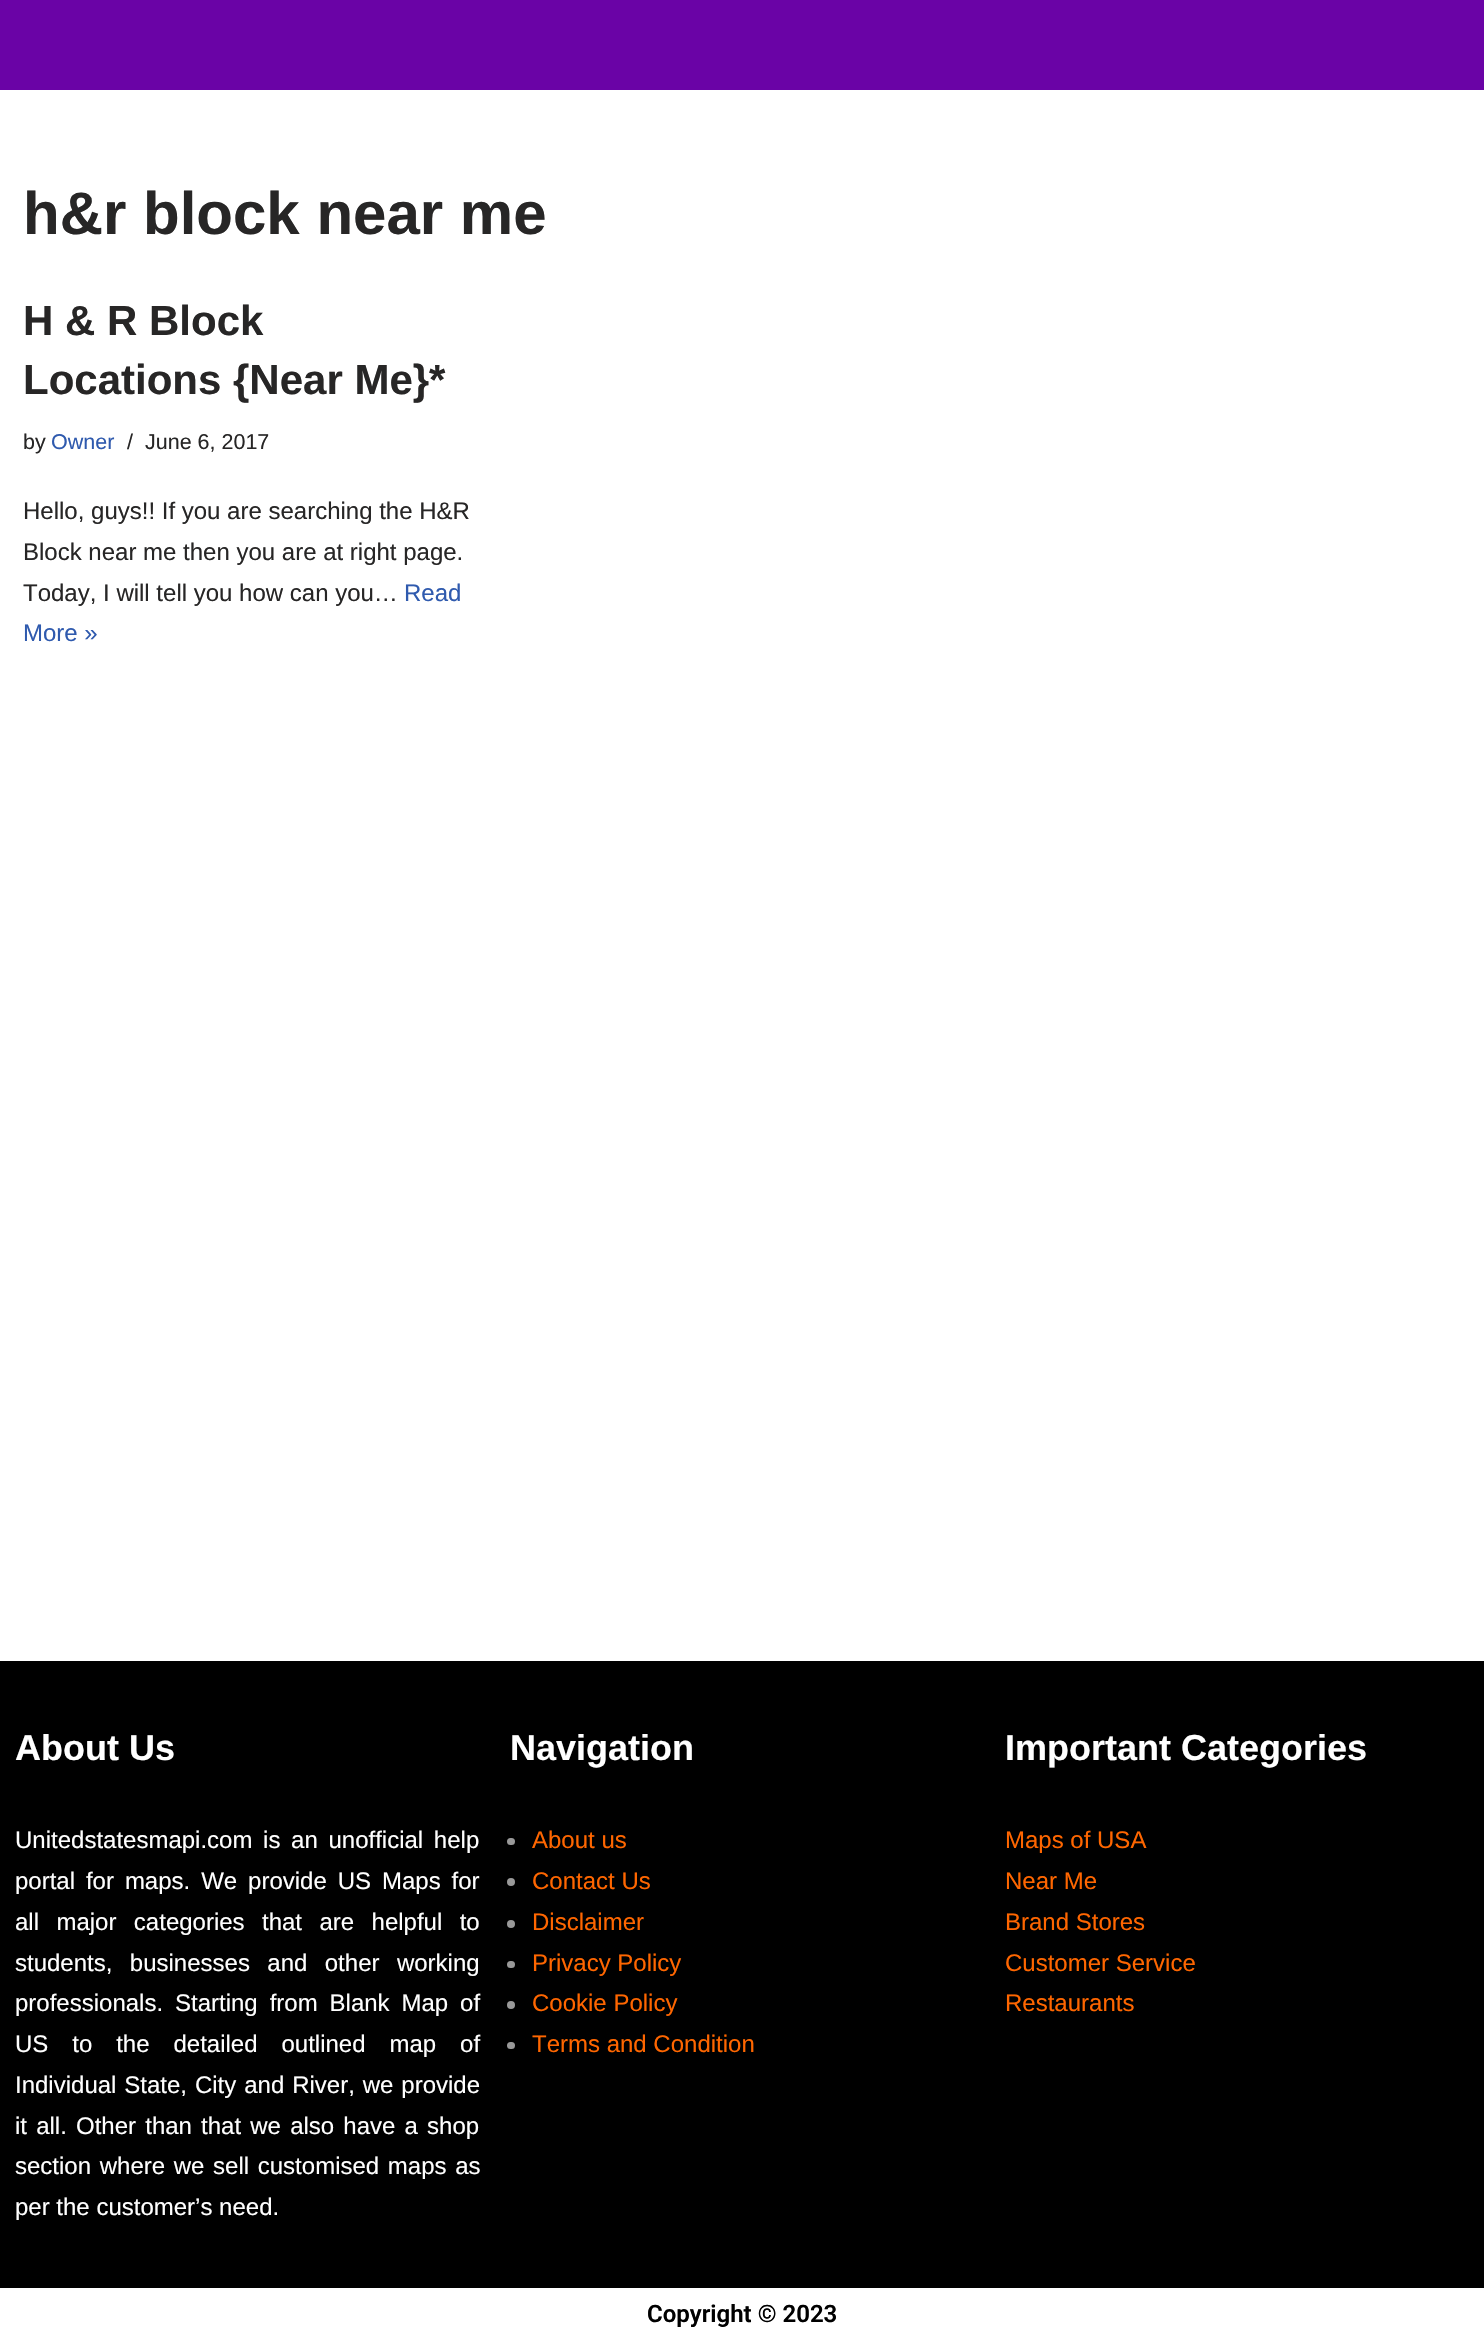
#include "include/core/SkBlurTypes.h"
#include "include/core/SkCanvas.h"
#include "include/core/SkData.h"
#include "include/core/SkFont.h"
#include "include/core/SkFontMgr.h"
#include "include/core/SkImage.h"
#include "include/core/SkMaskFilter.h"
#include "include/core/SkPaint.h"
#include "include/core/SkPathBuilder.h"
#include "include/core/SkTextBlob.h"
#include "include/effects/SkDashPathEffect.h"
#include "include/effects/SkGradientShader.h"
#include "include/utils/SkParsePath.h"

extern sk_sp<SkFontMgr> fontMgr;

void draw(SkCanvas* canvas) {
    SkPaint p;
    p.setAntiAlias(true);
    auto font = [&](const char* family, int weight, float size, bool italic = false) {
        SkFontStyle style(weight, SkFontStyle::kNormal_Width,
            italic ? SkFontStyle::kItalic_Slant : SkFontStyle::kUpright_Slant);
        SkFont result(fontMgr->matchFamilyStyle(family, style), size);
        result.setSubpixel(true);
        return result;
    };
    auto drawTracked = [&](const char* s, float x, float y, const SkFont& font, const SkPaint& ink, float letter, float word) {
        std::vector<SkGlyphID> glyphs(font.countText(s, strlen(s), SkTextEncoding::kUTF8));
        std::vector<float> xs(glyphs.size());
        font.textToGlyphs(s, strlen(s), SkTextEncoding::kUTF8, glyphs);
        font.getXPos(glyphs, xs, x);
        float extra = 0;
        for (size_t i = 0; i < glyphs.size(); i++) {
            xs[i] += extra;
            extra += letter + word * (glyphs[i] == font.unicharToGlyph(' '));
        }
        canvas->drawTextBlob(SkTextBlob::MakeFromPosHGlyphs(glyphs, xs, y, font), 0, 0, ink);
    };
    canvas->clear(0xFFFFFFFF);
    p.setColor(0xFF6A03A6);
    canvas->drawRect(SkRect::MakeLTRB(0, 0, 1484, 90), p);
    auto font1 = font("Liberation Sans", 700, 60);
    p.setColor(0xFF272626);
    canvas->drawString("h&r block near me", 23, 234, font1, p);
    auto font2 = font("Liberation Sans", 700, 42);
    canvas->drawString("H & R Block", 23, 335, font2, p);
    canvas->drawString("Locations {Near Me}*", 23, 394, font2, p);
    auto font3 = font("Liberation Sans", 400, 21.5f);
    canvas->drawString("by", 23, 449, font3, p);
    p.setColor(0xFF2F5AAE);
    canvas->drawString("Owner", 51, 449, font3, p);
    p.setColor(0xFF272626);
    canvas->drawString("/", 127, 449, font3, p);
    canvas->drawString("June 6, 2017", 145, 449, font3, p);
    auto font4 = font("Liberation Sans", 400, 24);
    {
        const struct { const char* s; float x, y; } items[] = {
            {"Hello, guys!! If you are searching the H&R", 23, 519},
            {"Block near me then you are at right page.", 23, 560},
            {"Today, I will tell you how can you…", 23, 601},
        };
        for (auto [s, x, y] : items) {
            canvas->drawString(s, x, y, font4, p);
        }
    }
    p.setColor(0xFF2F5AAE);
    canvas->drawString("Read", 404, 601, font4, p);
    canvas->drawString("More »", 23, 641, font4, p);
    p.setColor(0xFF000000);
    canvas->drawRect(SkRect::MakeLTRB(0, 1661, 1484, 2288), p);
    auto font5 = font("Liberation Sans", 700, 36);
    p.setColor(0xFFFFFFFF);
    canvas->drawString("About Us", 15, 1760, font5, p);
    drawTracked("Unitedstatesmapi.com is an unofficial help", 15, 1848, font4, p, 0, 4);
    drawTracked("portal for maps. We provide US Maps for", 15, 1889, font4, p, 0, 4.25f);
    drawTracked("all major categories that are helpful to", 15, 1930, font4, p, 0, 10.75f);
    drawTracked("students, businesses and other working", 15, 1971, font4, p, 0, 10.75f);
    drawTracked("professionals. Starting from Blank Map of", 15, 2011, font4, p, 0, 5.25f);
    drawTracked("US to the detailed outlined map of", 15, 2052, font4, p, 0, 17.25f);
    drawTracked("Individual State, City and River, we provide", 15, 2093, font4, p, 0, 1.25f);
    drawTracked("it all. Other than that we also have a shop", 15, 2134, font4, p, 0, 2.5f);
    drawTracked("section where we sell customised maps as", 15, 2174, font4, p, 0, 2);
    canvas->drawString("per the customer’s need.", 15, 2215, font4, p);
    canvas->drawString("Navigation", 510, 1760, font5, p);
    p.setColor(0xFF999999);
    canvas->drawRoundRect(SkRect::MakeLTRB(507, 1838, 515, 1845), 3.5f, 3.5f, p);
    p.setColor(0xFFFF6600);
    canvas->drawString("About us", 532, 1848, font4, p);
    p.setColor(0xFF999999);
    canvas->drawCircle(511, 1882, 4, p);
    p.setColor(0xFFFF6600);
    canvas->drawString("Contact Us", 532, 1889, font4, p);
    p.setColor(0xFF999999);
    canvas->drawCircle(511, 1924, 4, p);
    p.setColor(0xFFFF6600);
    canvas->drawString("Disclaimer", 532, 1930, font4, p);
    p.setColor(0xFF999999);
    canvas->drawRoundRect(SkRect::MakeLTRB(507, 1961, 515, 1968), 3.5f, 3.5f, p);
    p.setColor(0xFFFF6600);
    canvas->drawString("Privacy Policy", 532, 1971, font4, p);
    p.setColor(0xFF999999);
    canvas->drawCircle(511, 2005, 4, p);
    p.setColor(0xFFFF6600);
    canvas->drawString("Cookie Policy", 532, 2011, font4, p);
    p.setColor(0xFF999999);
    canvas->drawRoundRect(SkRect::MakeLTRB(507, 2042, 515, 2049), 3.5f, 3.5f, p);
    p.setColor(0xFFFF6600);
    canvas->drawString("Terms and Condition", 532, 2052, font4, p);
    p.setColor(0xFFFFFFFF);
    canvas->drawString("Important Categories", 1005, 1760, font5, p);
    p.setColor(0xFFFF6600);
    {
        const struct { const char* s; float x, y; } items[] = {
            {"Maps of USA", 1005, 1848},
            {"Near Me", 1005, 1889},
            {"Brand Stores", 1005, 1930},
            {"Customer Service", 1005, 1971},
            {"Restaurants", 1005, 2011},
        };
        for (auto [s, x, y] : items) {
            canvas->drawString(s, x, y, font4, p);
        }
    }
    auto font6 = font("Roboto", 600, 24);
    p.setColor(0xFF000000);
    canvas->drawString("Copyright © 2023", 647, 2322, font6, p);
}
